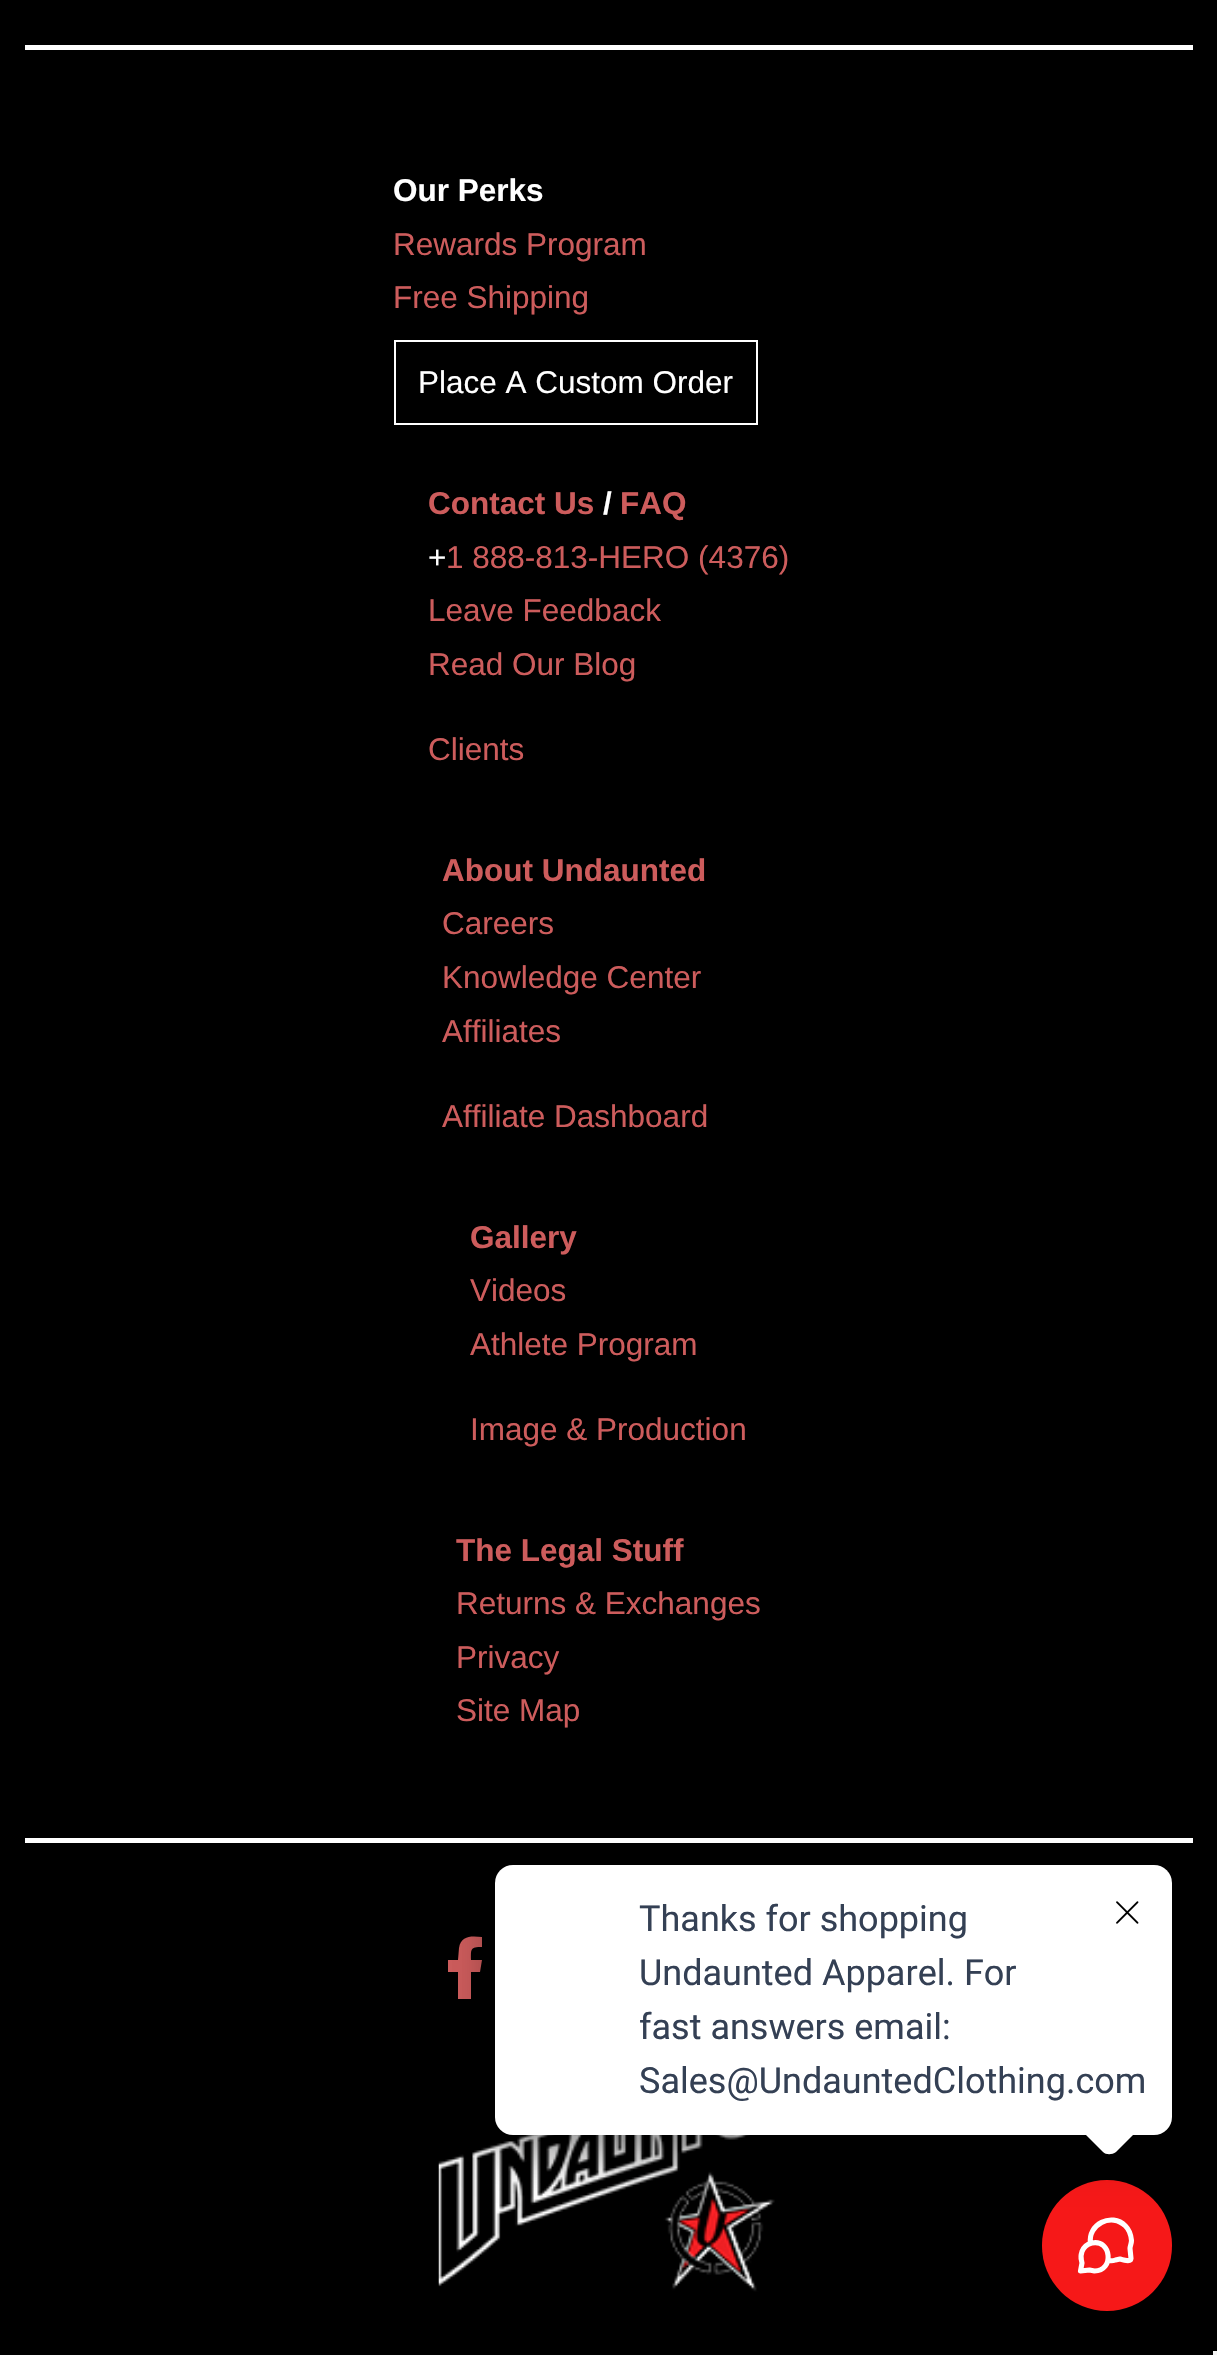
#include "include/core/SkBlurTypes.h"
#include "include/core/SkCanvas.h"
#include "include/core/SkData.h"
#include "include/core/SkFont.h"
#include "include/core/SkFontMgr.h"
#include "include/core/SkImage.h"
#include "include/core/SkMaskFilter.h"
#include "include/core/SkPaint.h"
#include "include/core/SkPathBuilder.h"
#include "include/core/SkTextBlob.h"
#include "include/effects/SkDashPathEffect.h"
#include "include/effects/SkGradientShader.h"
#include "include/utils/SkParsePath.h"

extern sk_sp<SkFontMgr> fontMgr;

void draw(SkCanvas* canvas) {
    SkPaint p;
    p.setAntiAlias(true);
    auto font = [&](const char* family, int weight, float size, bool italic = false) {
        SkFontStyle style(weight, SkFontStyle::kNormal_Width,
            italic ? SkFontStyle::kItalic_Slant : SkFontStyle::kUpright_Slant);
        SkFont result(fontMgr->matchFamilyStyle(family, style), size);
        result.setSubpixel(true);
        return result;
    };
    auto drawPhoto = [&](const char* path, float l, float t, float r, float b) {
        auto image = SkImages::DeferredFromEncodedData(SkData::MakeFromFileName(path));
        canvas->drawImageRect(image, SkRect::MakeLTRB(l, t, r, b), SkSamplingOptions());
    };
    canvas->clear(0xFF000000);
    p.setColor(0xFFFFFFFF);
    canvas->drawRect(SkRect::MakeLTRB(25, 45, 1193, 50), p);
    auto font1 = font("Liberation Sans", 700, 31.5f);
    canvas->drawString("Our Perks", 393, 201, font1, p);
    auto font2 = font("Liberation Sans", 400, 31.5f);
    p.setColor(0xFFCD5C5C);
    canvas->drawString("Rewards Program", 393, 255, font2, p);
    canvas->drawString("Free Shipping", 393, 308, font2, p);
    p.setStyle(SkPaint::kStroke_Style);
    p.setStrokeWidth(2);
    p.setColor(0xFFFFFFFF);
    canvas->drawRect(SkRect::MakeLTRB(395, 341, 757, 424), p);
    p.setStyle(SkPaint::kFill_Style);
    canvas->drawString("Place A Custom Order", 418, 393, font2, p);
    p.setColor(0xFFCD5C5C);
    canvas->drawString("Contact Us", 428, 514, font1, p);
    p.setColor(0xFFFFFFFF);
    canvas->drawString("/", 603, 514, font1, p);
    p.setColor(0xFFCD5C5C);
    canvas->drawString("FAQ", 620, 514, font1, p);
    p.setColor(0xFFFFFFFF);
    canvas->drawString("+", 428, 568, font2, p);
    p.setColor(0xFFCD5C5C);
    {
        const struct { const char* s; float x, y; } items[] = {
            {"1 888-813-HERO (4376)", 446, 568},
            {"Leave Feedback", 428, 621},
            {"Read Our Blog", 428, 675},
            {"Clients", 428, 760},
        };
        for (auto [s, x, y] : items) {
            canvas->drawString(s, x, y, font2, p);
        }
    }
    canvas->drawString("About Undaunted", 442, 881, font1, p);
    {
        const struct { const char* s; float x, y; } items[] = {
            {"Careers", 442, 934},
            {"Knowledge Center", 442, 988},
            {"Affiliates", 442, 1042},
            {"Affiliate Dashboard", 442, 1127},
        };
        for (auto [s, x, y] : items) {
            canvas->drawString(s, x, y, font2, p);
        }
    }
    canvas->drawString("Gallery", 470, 1248, font1, p);
    {
        const struct { const char* s; float x, y; } items[] = {
            {"Videos", 470, 1301},
            {"Athlete Program", 470, 1355},
            {"Image & Production", 470, 1440},
        };
        for (auto [s, x, y] : items) {
            canvas->drawString(s, x, y, font2, p);
        }
    }
    canvas->drawString("The Legal Stuff", 456, 1561, font1, p);
    {
        const struct { const char* s; float x, y; } items[] = {
            {"Returns & Exchanges", 456, 1614},
            {"Privacy", 456, 1668},
            {"Site Map", 456, 1721},
        };
        for (auto [s, x, y] : items) {
            canvas->drawString(s, x, y, font2, p);
        }
    }
    p.setColor(0xFFFFFFFF);
    canvas->drawRect(SkRect::MakeLTRB(25, 1838, 1193, 1843), p);
    p.setColor(0xFFCD5C5C);
    canvas->drawPath(SkPathBuilder().moveTo(480, 1972).lineTo(471, 1972).lineTo(471, 1999).lineTo(458, 1999).lineTo(458, 1972).lineTo(448, 1972).lineTo(448, 1960).lineTo(458, 1960).lineTo(459, 1948).cubicTo(461, 1935, 472, 1936, 482, 1937).lineTo(482, 1947).cubicTo(470, 1947, 471, 1949, 471, 1960).lineTo(482, 1960).close().detach(), p);
    drawPhoto("media/1.png", 438, 2135, 779, 2292);
    p.setColor(0x3D000000);
    p.setMaskFilter(SkMaskFilter::MakeBlur(kNormal_SkBlurStyle, 22.5f));
    canvas->drawRoundRect(SkRect::MakeLTRB(495, 1883, 1172, 2153), 18, 18, p);
    p.setMaskFilter(nullptr);
    p.setColor(0xFFF61818);
    canvas->drawRoundRect(SkRect::MakeLTRB(1042, 2180, 1172, 2311), 65, 65, p);
    p.setStyle(SkPaint::kStroke_Style);
    p.setStrokeWidth(5.1f);
    p.setStrokeCap(SkPaint::kRound_Cap);
    p.setStrokeJoin(SkPaint::kRound_Join);
    p.setColor(0xFFFFFFFF);
    canvas->drawPath(SkPathBuilder().moveTo(1090.5f, 2243.5f).cubicTo(1087.5f, 2224.5f, 1111.5f, 2212, 1125.5f, 2226).cubicTo(1129.5f, 2230, 1131, 2235, 1131.5f, 2240.5f).cubicTo(1131.5f, 2243.5f, 1130, 2246, 1130, 2248.5f).lineTo(1131, 2258.5f).lineTo(1130.5f, 2260).cubicTo(1129, 2261.5f, 1121.5f, 2259.5f, 1120, 2259).lineTo(1115.5f, 2260).cubicTo(1113, 2261, 1110.5f, 2261, 1108, 2260.5f).moveTo(1094.5f, 2271).cubicTo(1114.5f, 2271, 1111.5f, 2239, 1092, 2243).cubicTo(1087.5f, 2244, 1083.5f, 2247.5f, 1082, 2251.5f).cubicTo(1081, 2254.5f, 1080.5f, 2257.5f, 1081.5f, 2260.5f).lineTo(1082, 2263).lineTo(1080.5f, 2271).lineTo(1089.5f, 2270).close().detach(), p);
    p.setStyle(SkPaint::kFill_Style);
    p.setColor(0x3D000000);
    p.setMaskFilter(SkMaskFilter::MakeBlur(kNormal_SkBlurStyle, 22.5f));
    canvas->drawRoundRect(SkRect::MakeLTRB(495, 1883, 1172, 2153), 18, 18, p);
    p.setMaskFilter(nullptr);
    p.setColor(0xFFFFFFFF);
    canvas->drawRoundRect(SkRect::MakeLTRB(495, 1865, 1172, 2135), 18, 18, p);
    drawPhoto("media/2.png", 1116, 1901, 1139, 1924);
    auto font3 = font("Roboto", 400, 36);
    p.setColor(0xFF344054);
    {
        const struct { const char* s; float x, y; } items[] = {
            {"Thanks for shopping", 639, 1931},
            {"Undaunted Apparel. For", 639, 1985},
            {"fast answers email:", 639, 2039},
        };
        for (auto [s, x, y] : items) {
            canvas->drawString(s, x, y, font3, p);
        }
    }
    p.setColor(0xFFFFFFFF);
    canvas->drawPath(SkPathBuilder().moveTo(1116, 2101).lineTo(1135, 2120).cubicTo(1138, 2123, 1138, 2129, 1135, 2133).lineTo(1116, 2152).cubicTo(1112, 2155, 1106, 2155, 1103, 2152).lineTo(1084, 2133).cubicTo(1080, 2129, 1080, 2123, 1084, 2120).lineTo(1103, 2101).cubicTo(1106, 2097, 1112, 2097, 1116, 2101).close().detach(), p);
    p.setColor(0xFF344054);
    canvas->drawString("Sales@UndauntedClothing.com", 639, 2093, font3, p);
    p.setColor(0xFFF5F5F5);
    canvas->drawRect(SkRect::MakeLTRB(1213, 2351, 1217, 2355), p);
}
